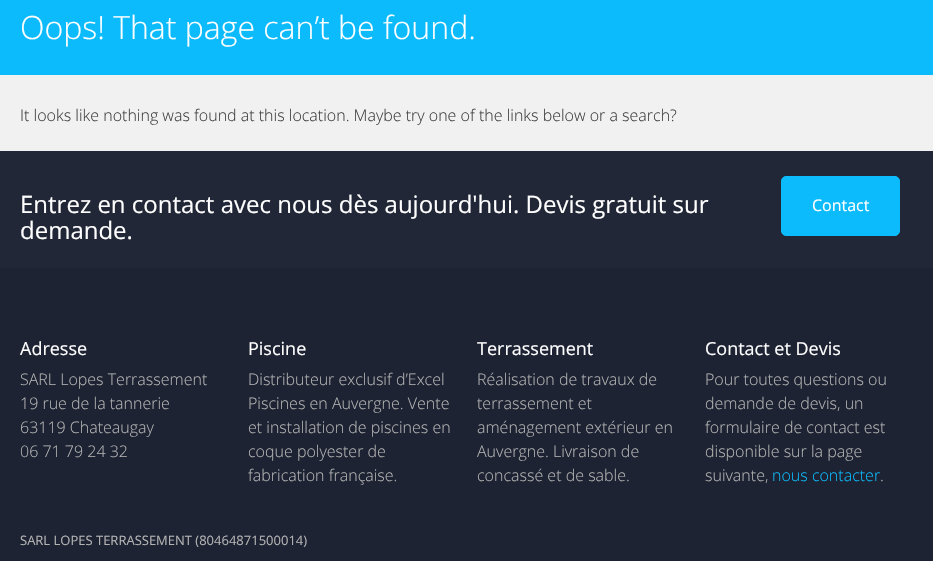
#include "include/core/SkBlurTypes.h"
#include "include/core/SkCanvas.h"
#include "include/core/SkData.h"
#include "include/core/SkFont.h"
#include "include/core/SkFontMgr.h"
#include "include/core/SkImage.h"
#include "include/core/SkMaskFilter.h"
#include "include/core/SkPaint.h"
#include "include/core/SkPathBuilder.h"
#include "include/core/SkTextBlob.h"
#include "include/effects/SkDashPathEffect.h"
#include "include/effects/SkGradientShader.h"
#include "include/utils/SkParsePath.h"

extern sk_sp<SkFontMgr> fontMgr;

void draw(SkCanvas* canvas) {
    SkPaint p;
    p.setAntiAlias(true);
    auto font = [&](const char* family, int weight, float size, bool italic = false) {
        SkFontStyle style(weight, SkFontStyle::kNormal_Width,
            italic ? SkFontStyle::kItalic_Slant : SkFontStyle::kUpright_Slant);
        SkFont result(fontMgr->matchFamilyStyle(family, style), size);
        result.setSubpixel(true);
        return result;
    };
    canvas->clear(0xFFF1F1F1);
    p.setColor(0xFF0CBBFC);
    canvas->drawRect(SkRect::MakeLTRB(0, 0, 933, 75), p);
    auto font1 = font("Open Sans", 300, 32);
    p.setColor(0xFFFFFFFF);
    canvas->drawString("Oops! That page can’t be found.", 20, 39, font1, p);
    auto font2 = font("Open Sans", 300, 16);
    p.setColor(0xFF404040);
    canvas->drawString("It looks like nothing was found at this location. Maybe try one of the links below or a search?", 20, 121, font2, p);
    p.setColor(0xFF212737);
    canvas->drawRect(SkRect::MakeLTRB(0, 151, 933, 268), p);
    auto font3 = font("Open Sans", 400, 24);
    p.setColor(0xFFFFFFFF);
    canvas->drawString("Entrez en contact avec nous dès aujourd'hui. Devis gratuit sur", 20, 213, font3, p);
    canvas->drawString("demande.", 20, 239, font3, p);
    p.setColor(0xFF0CBBFC);
    canvas->drawRoundRect(SkRect::MakeLTRB(781.5f, 176.5f, 899.5f, 235.5f), 4.5f, 4.5f, p);
    p.setStyle(SkPaint::kStroke_Style);
    p.setStrokeWidth(1);
    canvas->drawRoundRect(SkRect::MakeLTRB(781.5f, 176.5f, 899.5f, 235.5f), 4.5f, 4.5f, p);
    auto font4 = font("Open Sans", 400, 16);
    p.setStyle(SkPaint::kFill_Style);
    p.setColor(0xFFFFFFFF);
    canvas->drawString("Contact", 812, 211, font4, p);
    p.setColor(0xFF1D2333);
    canvas->drawRect(SkRect::MakeLTRB(0, 268, 933, 561), p);
    auto font5 = font("Open Sans", 400, 18);
    p.setColor(0xFFFFFFFF);
    canvas->drawString("Adresse", 20, 355, font5, p);
    p.setColor(0xFFB3B3B3);
    {
        const struct { const char* s; float x, y; } items[] = {
            {"SARL Lopes Terrassement", 20, 385},
            {"19 rue de la tannerie", 20, 409},
            {"63119 Chateaugay", 20, 433},
            {"06 71 79 24 32", 20, 457},
        };
        for (auto [s, x, y] : items) {
            canvas->drawString(s, x, y, font2, p);
        }
    }
    p.setColor(0xFFFFFFFF);
    canvas->drawString("Piscine", 248, 355, font5, p);
    p.setColor(0xFFB3B3B3);
    {
        const struct { const char* s; float x, y; } items[] = {
            {"Distributeur exclusif d’Excel", 248, 385},
            {"Piscines en Auvergne. Vente", 248, 409},
            {"et installation de piscines en", 248, 433},
            {"coque polyester de", 248, 457},
            {"fabrication française.", 248, 481},
        };
        for (auto [s, x, y] : items) {
            canvas->drawString(s, x, y, font2, p);
        }
    }
    p.setColor(0xFFFFFFFF);
    canvas->drawString("Terrassement", 477, 355, font5, p);
    p.setColor(0xFFB3B3B3);
    {
        const struct { const char* s; float x, y; } items[] = {
            {"Réalisation de travaux de", 477, 385},
            {"terrassement et", 477, 409},
            {"aménagement extérieur en", 477, 433},
            {"Auvergne. Livraison de", 477, 457},
            {"concassé et de sable.", 477, 481},
        };
        for (auto [s, x, y] : items) {
            canvas->drawString(s, x, y, font2, p);
        }
    }
    p.setColor(0xFFFFFFFF);
    canvas->drawString("Contact et Devis", 705, 355, font5, p);
    p.setColor(0xFFB3B3B3);
    {
        const struct { const char* s; float x, y; } items[] = {
            {"Pour toutes questions ou", 705, 385},
            {"demande de devis, un", 705, 409},
            {"formulaire de contact est", 705, 433},
            {"disponible sur la page", 705, 457},
            {"suivante,", 705, 481},
        };
        for (auto [s, x, y] : items) {
            canvas->drawString(s, x, y, font2, p);
        }
    }
    p.setColor(0xFF0CBBFC);
    canvas->drawString("nous contacter", 772, 481, font2, p);
    p.setColor(0xFFB3B3B3);
    canvas->drawString(".", 880, 481, font2, p);
    auto font6 = font("Open Sans", 400, 13);
    canvas->drawString("SARL LOPES TERRASSEMENT (80464871500014)", 20, 545, font6, p);
}
